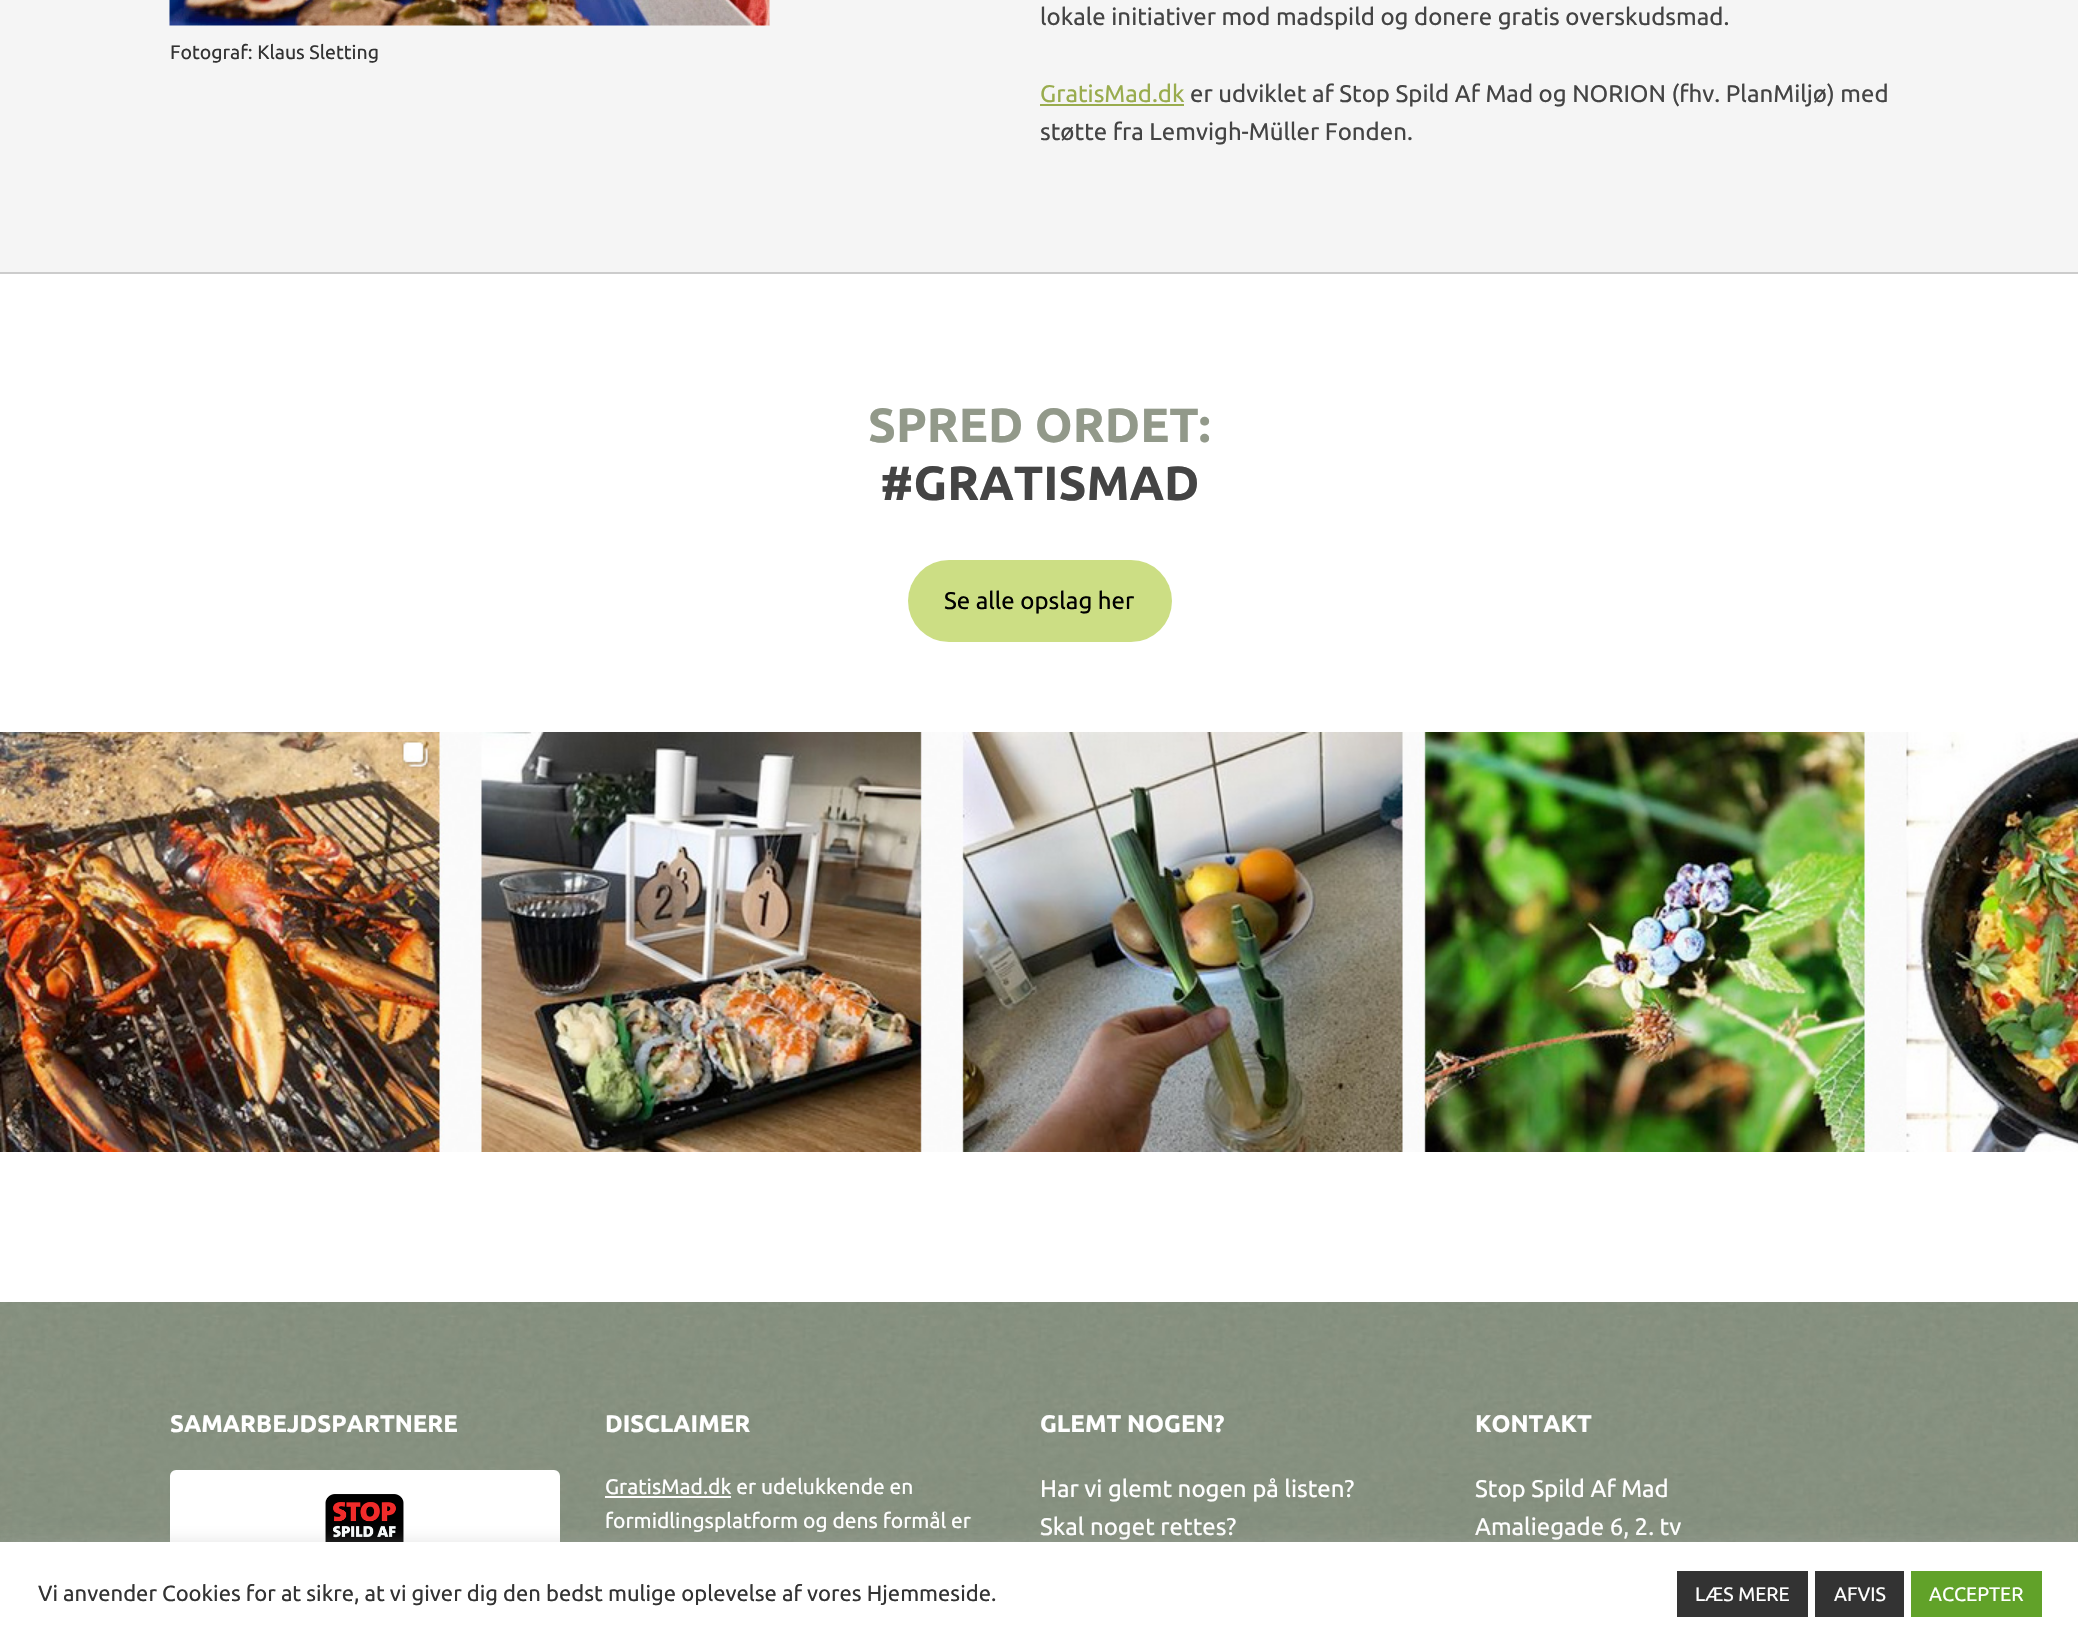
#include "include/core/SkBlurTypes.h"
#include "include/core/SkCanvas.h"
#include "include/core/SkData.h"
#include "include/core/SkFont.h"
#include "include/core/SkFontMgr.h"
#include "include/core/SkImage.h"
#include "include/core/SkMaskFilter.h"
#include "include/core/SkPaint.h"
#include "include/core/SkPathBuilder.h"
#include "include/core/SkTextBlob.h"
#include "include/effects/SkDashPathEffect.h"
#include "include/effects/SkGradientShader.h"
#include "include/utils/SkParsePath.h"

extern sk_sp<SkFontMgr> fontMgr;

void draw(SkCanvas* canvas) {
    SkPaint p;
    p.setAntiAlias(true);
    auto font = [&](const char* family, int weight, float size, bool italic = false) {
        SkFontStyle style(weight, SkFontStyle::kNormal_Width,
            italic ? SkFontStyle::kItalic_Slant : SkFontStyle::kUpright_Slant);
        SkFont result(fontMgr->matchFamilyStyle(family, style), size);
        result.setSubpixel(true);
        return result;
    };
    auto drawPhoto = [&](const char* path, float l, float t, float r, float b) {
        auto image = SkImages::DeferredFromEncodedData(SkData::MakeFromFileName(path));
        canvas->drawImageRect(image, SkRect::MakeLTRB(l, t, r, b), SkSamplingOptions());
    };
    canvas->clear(0xFFFFFFFF);
    p.setColor(0xFFF5F5F5);
    canvas->drawRect(SkRect::MakeLTRB(0, 0, 2078, 272), p);
    p.setColor(0xFFCCCCCC);
    canvas->drawRect(SkRect::MakeLTRB(0, 272, 2078, 274), p);
    drawPhoto("media/1.png", 169, 0, 770, 26);
    auto font1 = font("Ubuntu", 400, 19.5f);
    p.setColor(0xFF333333);
    canvas->drawString("Fotograf: Klaus Sletting", 170, 59, font1, p);
    auto font2 = font("Ubuntu", 400, 24);
    p.setColor(0xFF444444);
    canvas->drawString("lokale initiativer mod madspild og donere gratis overskudsmad.", 1040, 25, font2, p);
    p.setColor(0xFF99AC4E);
    canvas->drawString("GratisMad.dk", 1040, 102, font2, p);
    canvas->drawRect(SkRect::MakeLTRB(1040, 104, 1184, 106), p);
    p.setColor(0xFF444444);
    canvas->drawString("er udviklet af Stop Spild Af Mad og NORION (fhv. PlanMiljø) med", 1190, 102, font2, p);
    canvas->drawString("støtte fra Lemvigh-Müller Fonden.", 1040, 140, font2, p);
    auto font3 = font("Ubuntu", 700, 48);
    p.setColor(0xFF92998A);
    canvas->drawString("SPRED ORDET:", 868, 442, font3, p);
    p.setColor(0xFF444444);
    canvas->drawString("#GRATISMAD", 880, 500, font3, p);
    p.setColor(0xFFCCDE84);
    canvas->drawRoundRect(SkRect::MakeLTRB(908, 560, 1172, 642), 41, 41, p);
    p.setColor(0xFF000000);
    canvas->drawString("Se alle opslag her", 944, 609, font2, p);
    drawPhoto("media/2.png", 0, 732, 2078, 1152);
    drawPhoto("media/3.png", 0, 1302, 2078, 1542);
    auto font4 = font("Ubuntu", 700, 24);
    p.setColor(0xFFFFFFFF);
    canvas->drawString("SAMARBEJDSPARTNERE", 170, 1432, font4, p);
    canvas->drawRoundRect(SkRect::MakeLTRB(171, 1471, 559, 1597), 5, 5, p);
    p.setStyle(SkPaint::kStroke_Style);
    p.setStrokeWidth(2);
    canvas->drawRoundRect(SkRect::MakeLTRB(171, 1471, 559, 1597), 5, 5, p);
    drawPhoto("media/4.png", 325, 1494, 404, 1542);
    p.setStyle(SkPaint::kFill_Style);
    canvas->drawString("DISCLAIMER", 605, 1432, font4, p);
    auto font5 = font("Ubuntu", 400, 21);
    canvas->drawString("GratisMad.dk er udelukkende en", 605, 1494, font5, p);
    canvas->drawRect(SkRect::MakeLTRB(605, 1496, 731, 1498), p);
    canvas->drawString("formidlingsplatform og dens formål er", 605, 1528, font5, p);
    canvas->drawString("GLEMT NOGEN?", 1040, 1432, font4, p);
    canvas->drawString("Har vi glemt nogen på listen?", 1040, 1497, font2, p);
    canvas->drawString("Skal noget rettes?", 1040, 1535, font2, p);
    canvas->drawString("KONTAKT", 1475, 1432, font4, p);
    canvas->drawString("Stop Spild Af Mad", 1475, 1497, font2, p);
    canvas->drawString("Amaliegade 6, 2. tv", 1475, 1535, font2, p);
    p.setColor(0x4DACABAB);
    p.setMaskFilter(SkMaskFilter::MakeBlur(kNormal_SkBlurStyle, 7.5f));
    canvas->drawRect(SkRect::MakeLTRB(0, 1541, 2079, 1644), p);
    p.setMaskFilter(nullptr);
    p.setColor(0xFFFFFFFF);
    canvas->drawRect(SkRect::MakeLTRB(0, 1542, 2078, 1645), p);
    auto font6 = font("Ubuntu", 400, 22);
    p.setColor(0xFF333333);
    canvas->drawString("Vi anvender Cookies for at sikre, at vi giver dig den bedst mulige oplevelse af vores Hjemmeside.", 38, 1601, font6, p);
    canvas->drawRect(SkRect::MakeLTRB(1677, 1571, 1808, 1617), p);
    p.setColor(0xFFFFFFFF);
    canvas->drawString("LÆS MERE", 1695, 1601, font1, p);
    p.setColor(0xFF333333);
    canvas->drawRect(SkRect::MakeLTRB(1815, 1571, 1904, 1617), p);
    p.setColor(0xFFFFFFFF);
    canvas->drawString("AFVIS", 1834, 1601, font1, p);
    p.setColor(0xFF61A229);
    canvas->drawRect(SkRect::MakeLTRB(1911, 1571, 2042, 1617), p);
    p.setColor(0xFFFFFFFF);
    canvas->drawString("ACCEPTER", 1929, 1601, font1, p);
}
